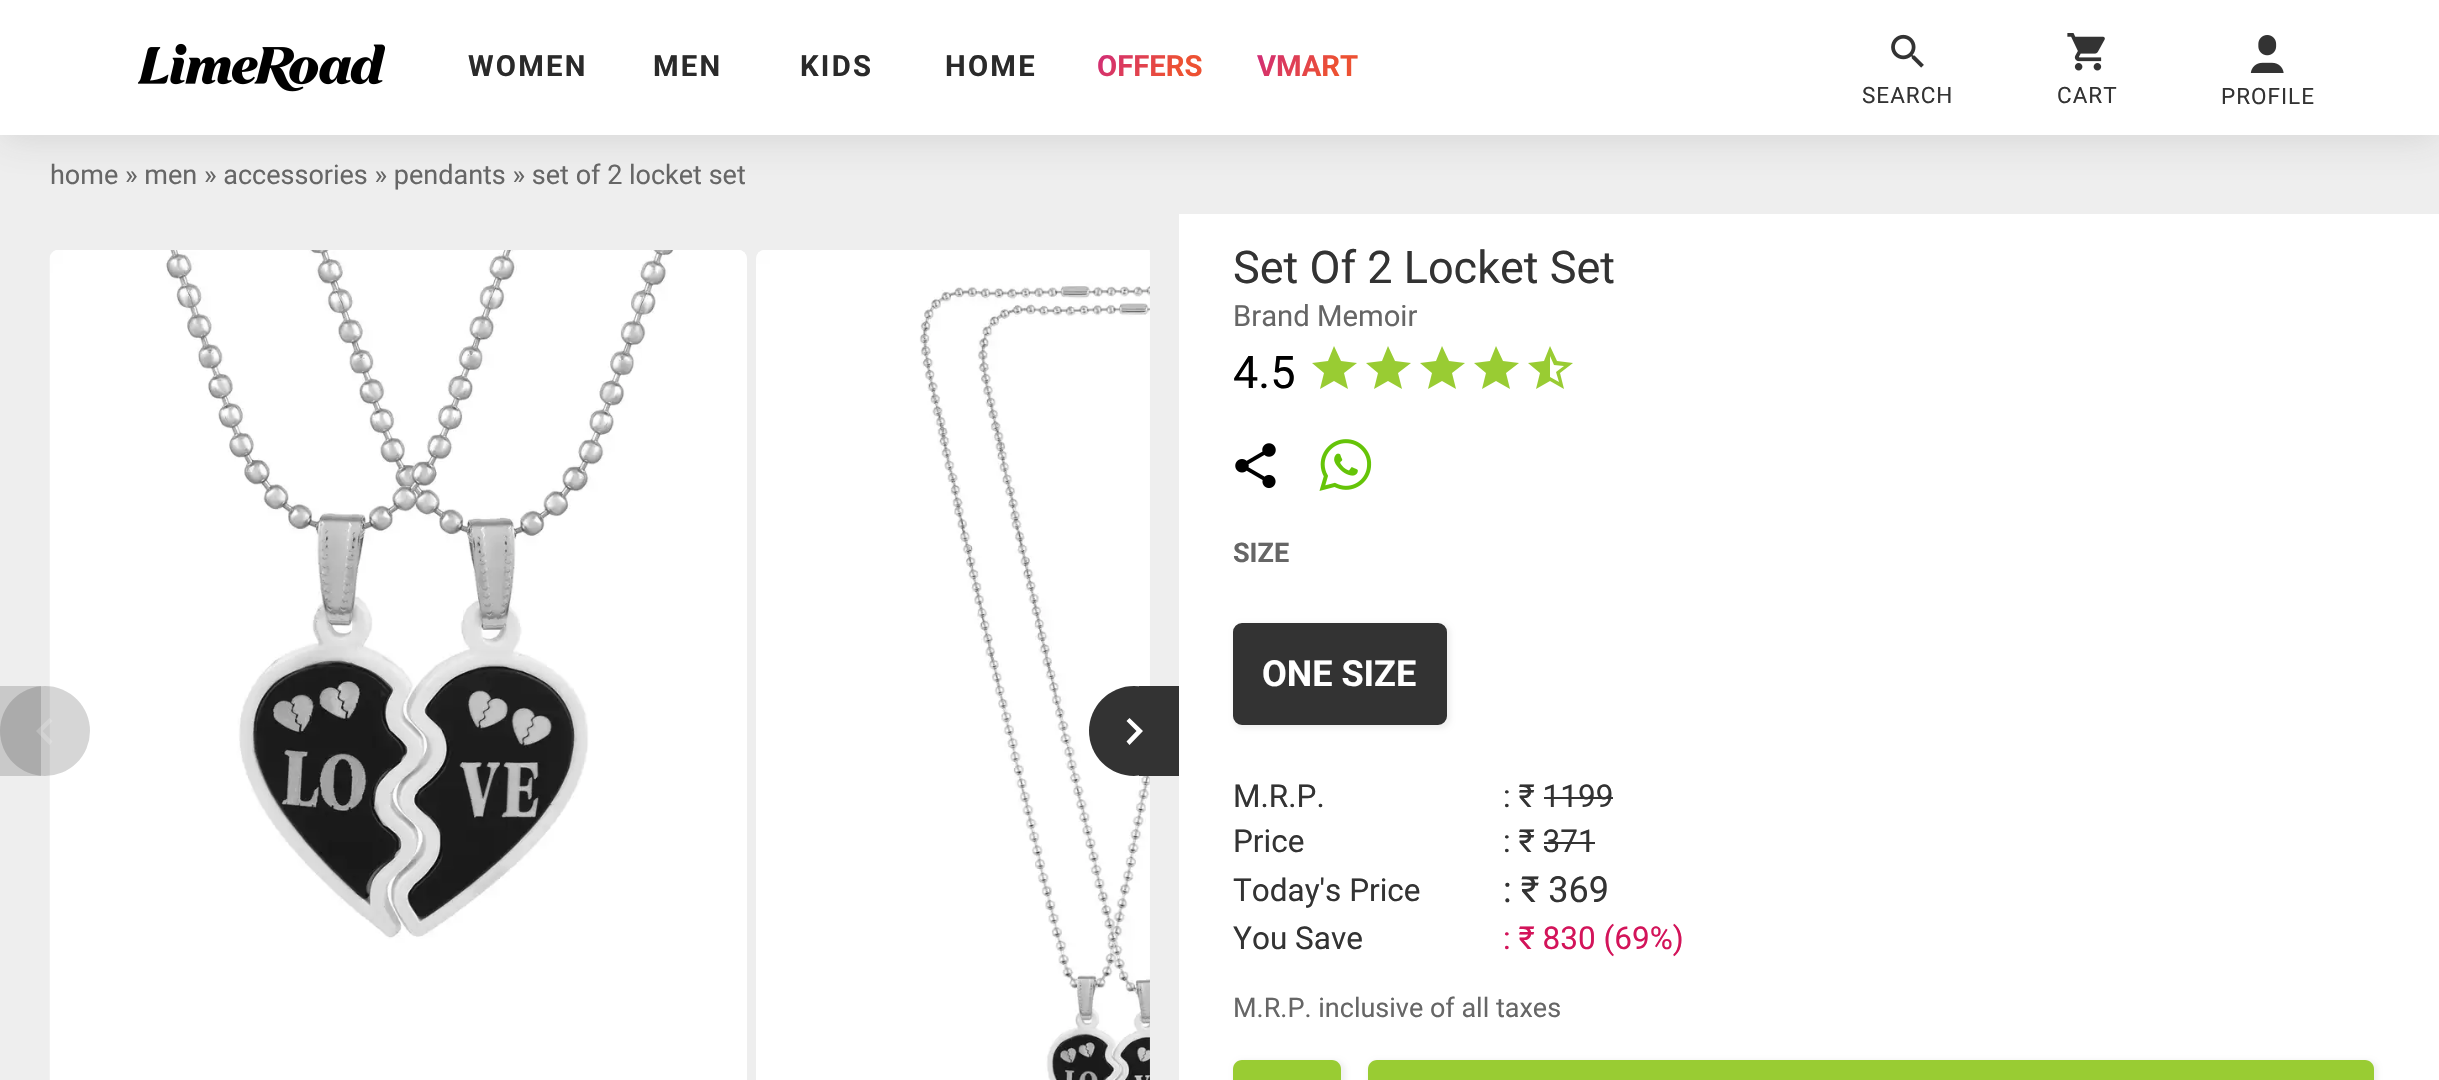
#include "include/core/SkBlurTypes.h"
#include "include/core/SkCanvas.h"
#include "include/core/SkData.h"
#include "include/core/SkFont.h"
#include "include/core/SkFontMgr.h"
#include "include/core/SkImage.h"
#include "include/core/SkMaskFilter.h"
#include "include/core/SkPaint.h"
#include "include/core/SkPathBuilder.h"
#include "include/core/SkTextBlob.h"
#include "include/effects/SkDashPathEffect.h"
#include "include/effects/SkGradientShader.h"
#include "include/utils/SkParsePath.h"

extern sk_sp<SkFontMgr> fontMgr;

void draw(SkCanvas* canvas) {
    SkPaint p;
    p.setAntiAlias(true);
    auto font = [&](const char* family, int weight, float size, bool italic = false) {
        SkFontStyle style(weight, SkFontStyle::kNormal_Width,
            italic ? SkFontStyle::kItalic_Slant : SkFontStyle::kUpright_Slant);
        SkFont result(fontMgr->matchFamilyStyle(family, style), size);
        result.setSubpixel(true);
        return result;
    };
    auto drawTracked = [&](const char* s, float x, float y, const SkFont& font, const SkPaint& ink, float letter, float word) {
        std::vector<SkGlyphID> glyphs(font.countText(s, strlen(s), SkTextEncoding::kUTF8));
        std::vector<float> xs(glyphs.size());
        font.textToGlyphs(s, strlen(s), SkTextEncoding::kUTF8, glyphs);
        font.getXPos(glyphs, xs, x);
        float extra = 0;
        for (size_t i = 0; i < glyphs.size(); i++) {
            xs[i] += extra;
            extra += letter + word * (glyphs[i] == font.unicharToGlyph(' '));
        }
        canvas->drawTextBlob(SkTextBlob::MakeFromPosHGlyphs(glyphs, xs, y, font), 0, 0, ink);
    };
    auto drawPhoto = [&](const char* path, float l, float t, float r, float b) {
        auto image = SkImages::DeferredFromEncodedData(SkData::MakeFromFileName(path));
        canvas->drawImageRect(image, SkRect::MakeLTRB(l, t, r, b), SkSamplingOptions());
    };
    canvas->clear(0xFFEEEEEE);
    p.setColor(0x29555555);
    p.setMaskFilter(SkMaskFilter::MakeBlur(kNormal_SkBlurStyle, 18));
    canvas->drawRect(SkRect::MakeLTRB(0, 5, 2439, 140), p);
    p.setMaskFilter(nullptr);
    p.setColor(0xFFFFFFFF);
    canvas->drawRect(SkRect::MakeLTRB(0, 0, 2439, 135), p);
    drawPhoto("media/1.png", 137, 43, 385, 92);
    auto font1 = font("Roboto", 700, 29.25f);
    p.setColor(0xFF2A2A2A);
    {
        const struct { const char* s; float x, y; } items[] = {
            {"WOMEN", 468, 76},
            {"MEN", 653, 76},
            {"KIDS", 800, 76},
            {"HOME", 945, 76},
        };
        for (auto [s, x, y] : items) {
            drawTracked(s, x, y, font1, p, 2.25f, 0);
        }
    }
    {
        const SkColor colors[] = {0xFFCE297E, 0xFFED5133};
        const float stops[] = {0, 0.73f};
        const SkPoint ends[] = {{1101, 34}, {1195, 95}};
        p.setShader(SkGradientShader::MakeLinear(ends, colors, stops, 2, SkTileMode::kClamp));
        p.setAlpha(255);
    }
    canvas->drawString("OFFERS", 1097, 76, font1, p);
    {
        const SkColor colors[] = {0xFFCE297E, 0xFFED5133};
        const float stops[] = {0, 0.73f};
        const SkPoint ends[] = {{1260, 35}, {1351, 94}};
        p.setShader(SkGradientShader::MakeLinear(ends, colors, stops, 2, SkTileMode::kClamp));
        p.setAlpha(255);
    }
    canvas->drawString("VMART", 1257, 76, font1, p);
    drawPhoto("media/2.png", 1891, 34, 1924, 68);
    auto font2 = font("Roboto", 400, 22.5f);
    p.setShader(nullptr);
    p.setColor(0xFF333333);
    drawTracked("SEARCH", 1862, 103, font2, p, 1, 0);
    drawPhoto("media/3.png", 2067, 33, 2105, 71);
    drawTracked("CART", 2057, 103, font2, p, 1, 0);
    drawPhoto("media/4.png", 2250, 35, 2284, 73);
    drawTracked("PROFILE", 2221, 104, font2, p, 1, 0);
    auto font3 = font("Roboto", 400, 27);
    p.setColor(0xFF666666);
    canvas->drawString("home » men » accessories » pendants » set of 2 locket set", 50, 184, font3, p);
    p.setColor(0xFFC9C9C9);
    canvas->drawRect(SkRect::MakeLTRB(0, 686, 41, 776), p);
    drawPhoto("media/5.png", 49, 250, 747, 1080);
    drawPhoto("media/6.png", 53, 250, 745, 938);
    p.setColor(0x33333333);
    canvas->drawCircle(45, 731, 45, p);
    p.setColor(0x33FFFFFF);
    canvas->drawPath(SkPathBuilder().moveTo(52.5f, 721).lineTo(49.5f, 718).lineTo(36, 731).lineTo(49.5f, 745).lineTo(52.5f, 741.5f).lineTo(42.5f, 731).close().detach(), p);
    drawPhoto("media/7.png", 756, 250, 1150, 1080);
    drawPhoto("media/8.png", 758, 252, 1150, 1080);
    p.setColor(0xFF333333);
    canvas->drawRect(SkRect::MakeLTRB(1139, 686, 1179, 776), p);
    canvas->drawCircle(1134, 731, 45, p);
    p.setColor(0xFFFFFFFF);
    canvas->drawPath(SkPathBuilder().moveTo(1129.5f, 718).lineTo(1126.5f, 721).lineTo(1136.5f, 731).lineTo(1126.5f, 741.5f).lineTo(1129.5f, 745).lineTo(1143, 731).close().detach(), p);
    canvas->drawRect(SkRect::MakeLTRB(1179, 214, 2439, 1080), p);
    auto font4 = font("Roboto", 400, 45);
    p.setColor(0xFF333333);
    canvas->drawString("Set Of 2 Locket Set", 1233, 283, font4, p);
    auto font5 = font("Roboto", 400, 29.25f);
    p.setColor(0xFF666666);
    canvas->drawString("Brand Memoir", 1233, 326, font5, p);
    p.setColor(0xFF000000);
    canvas->drawString("4.5", 1233, 388, font4, p);
    p.setColor(0xFF99CC33);
    canvas->drawPath(SkPathBuilder().moveTo(1334, 381).lineTo(1348, 389).lineTo(1344, 373).lineTo(1357, 363).lineTo(1341, 361).lineTo(1334, 346).lineTo(1328, 361).lineTo(1312, 363).lineTo(1324, 373).lineTo(1320, 389).close().detach(), p);
    canvas->drawPath(SkPathBuilder().moveTo(1388, 381).lineTo(1402, 389).lineTo(1398, 373).lineTo(1411, 363).lineTo(1395, 361).lineTo(1388, 346).lineTo(1382, 361).lineTo(1366, 363).lineTo(1378, 373).lineTo(1374, 389).close().detach(), p);
    canvas->drawPath(SkPathBuilder().moveTo(1442, 381).lineTo(1456, 389).lineTo(1452, 373).lineTo(1465, 363).lineTo(1449, 361).lineTo(1442, 346).lineTo(1436, 361).lineTo(1420, 363).lineTo(1432, 373).lineTo(1428, 389).close().detach(), p);
    canvas->drawPath(SkPathBuilder().moveTo(1496, 381).lineTo(1510, 389).lineTo(1506, 373).lineTo(1519, 363).lineTo(1503, 361).lineTo(1496, 346).lineTo(1490, 361).lineTo(1474, 363).lineTo(1486, 373).lineTo(1482, 389).close().detach(), p);
    canvas->drawPath(SkPathBuilder().moveTo(1573, 363).lineTo(1557, 361).lineTo(1550, 346).lineTo(1544, 361).lineTo(1528, 363).lineTo(1540, 373).lineTo(1536, 389).lineTo(1550, 381).lineTo(1564, 389).lineTo(1560, 373).close().moveTo(1550, 377).lineTo(1550, 356).lineTo(1554, 365).lineTo(1564, 366).lineTo(1556, 372).lineTo(1559, 382).close().detach(), p);
    drawPhoto("media/9.png", 1235, 443, 1276, 489);
    drawPhoto("media/10.png", 1319, 439, 1372, 491);
    auto font6 = font("Roboto", 700, 27);
    p.setColor(0xFF666666);
    canvas->drawString("SIZE", 1233, 562, font6, p);
    p.setColor(0x0D000000);
    p.setMaskFilter(SkMaskFilter::MakeBlur(kNormal_SkBlurStyle, 2));
    canvas->drawRoundRect(SkRect::MakeLTRB(1233, 623, 1451, 729), 11, 11, p);
    p.setMaskFilter(nullptr);
    p.setColor(0xFF333333);
    canvas->drawRoundRect(SkRect::MakeLTRB(1234, 624, 1446, 724), 8, 8, p);
    p.setStyle(SkPaint::kStroke_Style);
    p.setStrokeWidth(2);
    canvas->drawRoundRect(SkRect::MakeLTRB(1234, 624, 1446, 724), 8, 8, p);
    auto font7 = font("Roboto", 700, 36);
    p.setStyle(SkPaint::kFill_Style);
    p.setColor(0xFFFFFFFF);
    canvas->drawString("ONE SIZE", 1262, 686, font7, p);
    auto font8 = font("Roboto", 400, 31.5f);
    p.setColor(0xFF333333);
    canvas->drawString("M.R.P.", 1233, 807, font8, p);
    canvas->drawString(": ₹ 1199", 1503, 807, font8, p);
    canvas->drawRect(SkRect::MakeLTRB(1544, 797, 1613, 799), p);
    canvas->drawString("Price", 1233, 852, font8, p);
    canvas->drawString(": ₹ 371", 1503, 852, font8, p);
    canvas->drawRect(SkRect::MakeLTRB(1544, 842, 1595, 844), p);
    canvas->drawString("Today's Price", 1233, 901, font8, p);
    auto font9 = font("Roboto", 400, 36);
    canvas->drawString(": ₹ 369", 1503, 902, font9, p);
    canvas->drawString("You Save", 1233, 949, font8, p);
    p.setColor(0xFFD3145A);
    canvas->drawString(": ₹ 830 (69%)", 1503, 949, font8, p);
    p.setColor(0xFF666666);
    canvas->drawString("M.R.P. inclusive of all taxes", 1233, 1017, font3, p);
    p.setColor(0x0D000000);
    p.setMaskFilter(SkMaskFilter::MakeBlur(kNormal_SkBlurStyle, 2));
    canvas->drawRoundRect(SkRect::MakeLTRB(1233, 1060, 1346, 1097), 11, 11, p);
    p.setMaskFilter(nullptr);
    p.setColor(0xFF99CC33);
    canvas->drawPath(SkPathBuilder().moveTo(1242, 1060).lineTo(1332, 1060).cubicTo(1337, 1060, 1341, 1064, 1341, 1069).lineTo(1341, 1080).lineTo(1233, 1080).lineTo(1233, 1069).cubicTo(1233, 1064, 1237, 1060, 1242, 1060).close().detach(), p);
    p.setColor(0x0D000000);
    p.setMaskFilter(SkMaskFilter::MakeBlur(kNormal_SkBlurStyle, 2));
    canvas->drawRoundRect(SkRect::MakeLTRB(1368, 1060, 2378, 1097), 11, 11, p);
    p.setMaskFilter(nullptr);
    p.setColor(0xFF99CC33);
    canvas->drawPath(SkPathBuilder().moveTo(1377, 1060).lineTo(2365, 1060).cubicTo(2370, 1060, 2374, 1064, 2374, 1069).lineTo(2374, 1080).lineTo(1368, 1080).lineTo(1368, 1069).cubicTo(1368, 1064, 1372, 1060, 1377, 1060).close().detach(), p);
}
